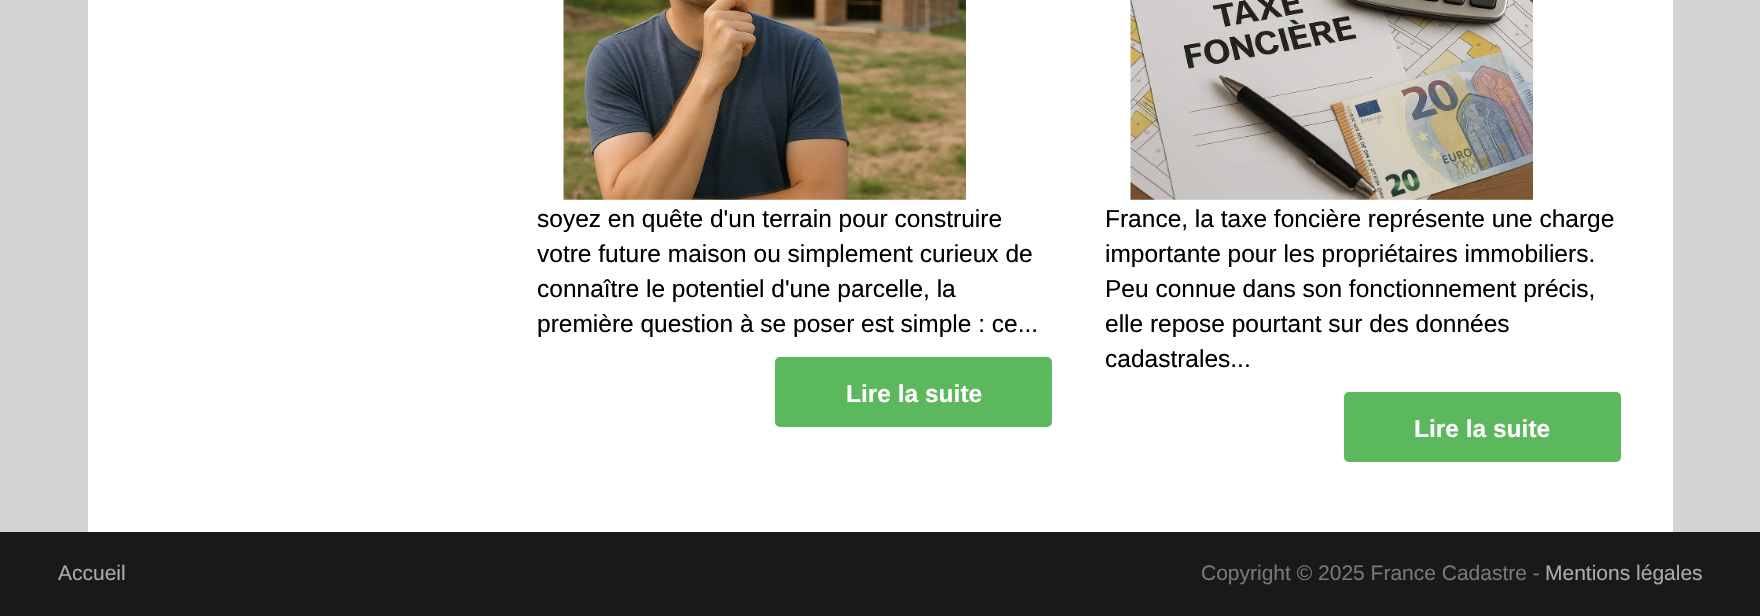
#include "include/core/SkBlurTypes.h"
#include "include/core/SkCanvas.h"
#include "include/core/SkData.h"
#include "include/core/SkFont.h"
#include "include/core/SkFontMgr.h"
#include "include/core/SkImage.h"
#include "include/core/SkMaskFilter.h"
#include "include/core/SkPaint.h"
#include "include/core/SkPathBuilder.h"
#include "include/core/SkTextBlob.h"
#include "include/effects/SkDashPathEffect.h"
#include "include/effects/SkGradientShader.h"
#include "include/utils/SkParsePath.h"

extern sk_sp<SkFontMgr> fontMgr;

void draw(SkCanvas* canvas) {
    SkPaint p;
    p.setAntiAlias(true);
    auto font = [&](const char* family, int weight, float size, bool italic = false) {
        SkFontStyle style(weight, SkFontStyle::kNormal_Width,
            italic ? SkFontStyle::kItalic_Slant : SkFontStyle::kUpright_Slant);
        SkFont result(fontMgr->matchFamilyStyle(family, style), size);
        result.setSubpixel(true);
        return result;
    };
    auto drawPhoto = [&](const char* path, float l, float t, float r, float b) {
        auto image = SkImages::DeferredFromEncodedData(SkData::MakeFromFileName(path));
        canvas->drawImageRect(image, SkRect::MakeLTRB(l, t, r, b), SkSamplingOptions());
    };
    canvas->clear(0xFFD4D4D4);
    p.setColor(0xFFFFFFFF);
    canvas->drawRect(SkRect::MakeLTRB(88, 0, 1673, 532), p);
    drawPhoto("media/1.png", 563, 0, 966, 200);
    auto font1 = font("Liberation Sans", 400, 24.5f);
    p.setColor(0xFF000000);
    {
        const struct { const char* s; float x, y; } items[] = {
            {"soyez en quête d'un terrain pour construire", 537, 227},
            {"votre future maison ou simplement curieux de", 537, 262},
            {"connaître le potentiel d'une parcelle, la", 537, 297},
            {"première question à se poser est simple : ce...", 537, 332},
        };
        for (auto [s, x, y] : items) {
            canvas->drawString(s, x, y, font1, p);
        }
    }
    p.setColor(0xFF5CB85C);
    canvas->drawRoundRect(SkRect::MakeLTRB(775, 357, 1052, 427), 5, 5, p);
    auto font2 = font("Liberation Sans", 700, 24.5f);
    p.setColor(0xFFFFFFFF);
    canvas->drawString("Lire la suite", 846, 402, font2, p);
    drawPhoto("media/2.png", 1130, 0, 1533, 200);
    p.setColor(0xFF000000);
    {
        const struct { const char* s; float x, y; } items[] = {
            {"France, la taxe foncière représente une charge", 1105, 227},
            {"importante pour les propriétaires immobiliers.", 1105, 262},
            {"Peu connue dans son fonctionnement précis,", 1105, 297},
            {"elle repose pourtant sur des données", 1105, 332},
            {"cadastrales...", 1105, 367},
        };
        for (auto [s, x, y] : items) {
            canvas->drawString(s, x, y, font1, p);
        }
    }
    p.setColor(0xFF5CB85C);
    canvas->drawRoundRect(SkRect::MakeLTRB(1344, 392, 1621, 462), 5, 5, p);
    p.setColor(0xFFFFFFFF);
    canvas->drawString("Lire la suite", 1414, 437, font2, p);
    p.setColor(0xFF191919);
    canvas->drawRect(SkRect::MakeLTRB(0, 532, 1760, 616), p);
    auto font3 = font("Liberation Sans", 400, 21);
    p.setColor(0xFFAAAAAA);
    canvas->drawString("Accueil", 58, 580, font3, p);
    p.setColor(0xFF777777);
    canvas->drawString("Copyright © 2025 France Cadastre -", 1201, 580, font3, p);
    p.setColor(0xFFAAAAAA);
    canvas->drawString("Mentions légales", 1545, 580, font3, p);
}
